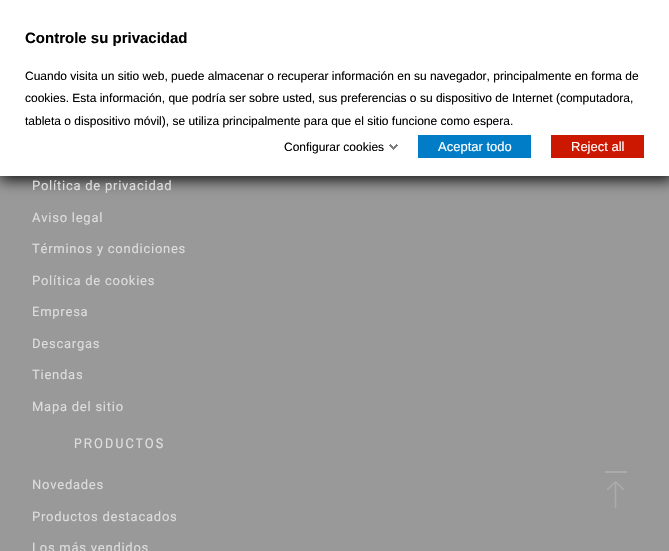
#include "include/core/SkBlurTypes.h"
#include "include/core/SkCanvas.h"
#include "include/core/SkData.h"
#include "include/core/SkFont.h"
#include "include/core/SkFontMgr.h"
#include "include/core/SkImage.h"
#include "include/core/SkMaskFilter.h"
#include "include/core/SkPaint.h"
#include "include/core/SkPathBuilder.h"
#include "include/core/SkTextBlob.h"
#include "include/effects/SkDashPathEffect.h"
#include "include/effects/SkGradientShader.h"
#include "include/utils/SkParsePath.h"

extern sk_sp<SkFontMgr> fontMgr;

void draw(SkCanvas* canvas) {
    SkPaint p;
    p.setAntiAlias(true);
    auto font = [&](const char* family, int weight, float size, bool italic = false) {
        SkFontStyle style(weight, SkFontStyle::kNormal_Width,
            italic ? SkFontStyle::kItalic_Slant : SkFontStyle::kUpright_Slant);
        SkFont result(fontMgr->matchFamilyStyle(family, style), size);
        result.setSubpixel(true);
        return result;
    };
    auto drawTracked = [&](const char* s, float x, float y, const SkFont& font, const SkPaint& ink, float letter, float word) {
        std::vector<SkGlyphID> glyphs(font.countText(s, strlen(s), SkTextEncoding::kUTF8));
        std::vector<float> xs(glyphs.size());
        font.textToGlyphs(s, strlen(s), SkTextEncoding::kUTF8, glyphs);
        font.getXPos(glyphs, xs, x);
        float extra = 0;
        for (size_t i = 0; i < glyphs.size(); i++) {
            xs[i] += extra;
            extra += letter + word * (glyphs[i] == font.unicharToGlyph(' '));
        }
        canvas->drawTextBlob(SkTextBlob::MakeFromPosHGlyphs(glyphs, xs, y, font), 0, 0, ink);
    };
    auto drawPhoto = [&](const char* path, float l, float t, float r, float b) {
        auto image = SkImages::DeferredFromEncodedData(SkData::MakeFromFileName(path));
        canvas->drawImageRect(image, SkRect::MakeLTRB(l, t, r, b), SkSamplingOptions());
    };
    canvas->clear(0xFF999999);
    p.setColor(0xFF121212);
    p.setMaskFilter(SkMaskFilter::MakeBlur(kNormal_SkBlurStyle, 7));
    canvas->drawRect(SkRect::MakeLTRB(0, 0, 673, 180), p);
    p.setMaskFilter(nullptr);
    p.setColor(0xFFFFFFFF);
    canvas->drawRect(SkRect::MakeLTRB(0, 0, 669, 176), p);
    auto font1 = font("Liberation Sans", 700, 15);
    p.setColor(0xFF000000);
    canvas->drawString("Controle su privacidad", 25, 43, font1, p);
    auto font2 = font("Liberation Sans", 400, 12);
    {
        const struct { const char* s; float x, y; } items[] = {
            {"Cuando visita un sitio web, puede almacenar o recuperar información en su navegador, principalmente en forma de", 25, 80},
            {"cookies. Esta información, que podría ser sobre usted, sus preferencias o su dispositivo de Internet (computadora,", 25, 102},
            {"tableta o dispositivo móvil), se utiliza principalmente para que el sitio funcione como espera.", 25, 125},
            {"Configurar cookies", 284, 151},
        };
        for (auto [s, x, y] : items) {
            canvas->drawString(s, x, y, font2, p);
        }
    }
    drawPhoto("media/1.png", 389, 144, 398, 150);
    p.setColor(0xFF007DC6);
    canvas->drawRect(SkRect::MakeLTRB(418, 135, 531, 158), p);
    auto font3 = font("Liberation Sans", 400, 13);
    p.setColor(0xFFFFFFFF);
    canvas->drawString("Aceptar todo", 438, 151, font3, p);
    p.setColor(0xFFCC1800);
    canvas->drawRect(SkRect::MakeLTRB(551, 135, 644, 158), p);
    p.setColor(0xFFFFFFFF);
    canvas->drawString("Reject all", 571, 151, font3, p);
    auto font4 = font("Roboto", 400, 13);
    p.setColor(0xFFDEDEDE);
    {
        const struct { const char* s; float x, y; } items[] = {
            {"Política de privacidad", 32, 190},
            {"Aviso legal", 32, 222},
            {"Términos y condiciones", 32, 253},
            {"Política de cookies", 32, 285},
            {"Empresa", 32, 316},
            {"Descargas", 32, 348},
            {"Tiendas", 32, 379},
            {"Mapa del sitio", 32, 411},
        };
        for (auto [s, x, y] : items) {
            drawTracked(s, x, y, font4, p, 0.75f, 0);
        }
    }
    auto font5 = font("Archivo Narrow", 400, 14);
    drawTracked("PRODUCTOS", 74, 448, font5, p, 2, 0);
    {
        const struct { const char* s; float x, y; } items[] = {
            {"Novedades", 32, 489},
            {"Productos destacados", 32, 521},
            {"Los más vendidos", 32, 552},
        };
        for (auto [s, x, y] : items) {
            drawTracked(s, x, y, font4, p, 0.75f, 0);
        }
    }
    p.setColor(0xFFABABAB);
    canvas->drawRect(SkRect::MakeLTRB(605, 471, 627, 473), p);
    drawPhoto("media/2.png", 607, 481, 624, 508);
}
